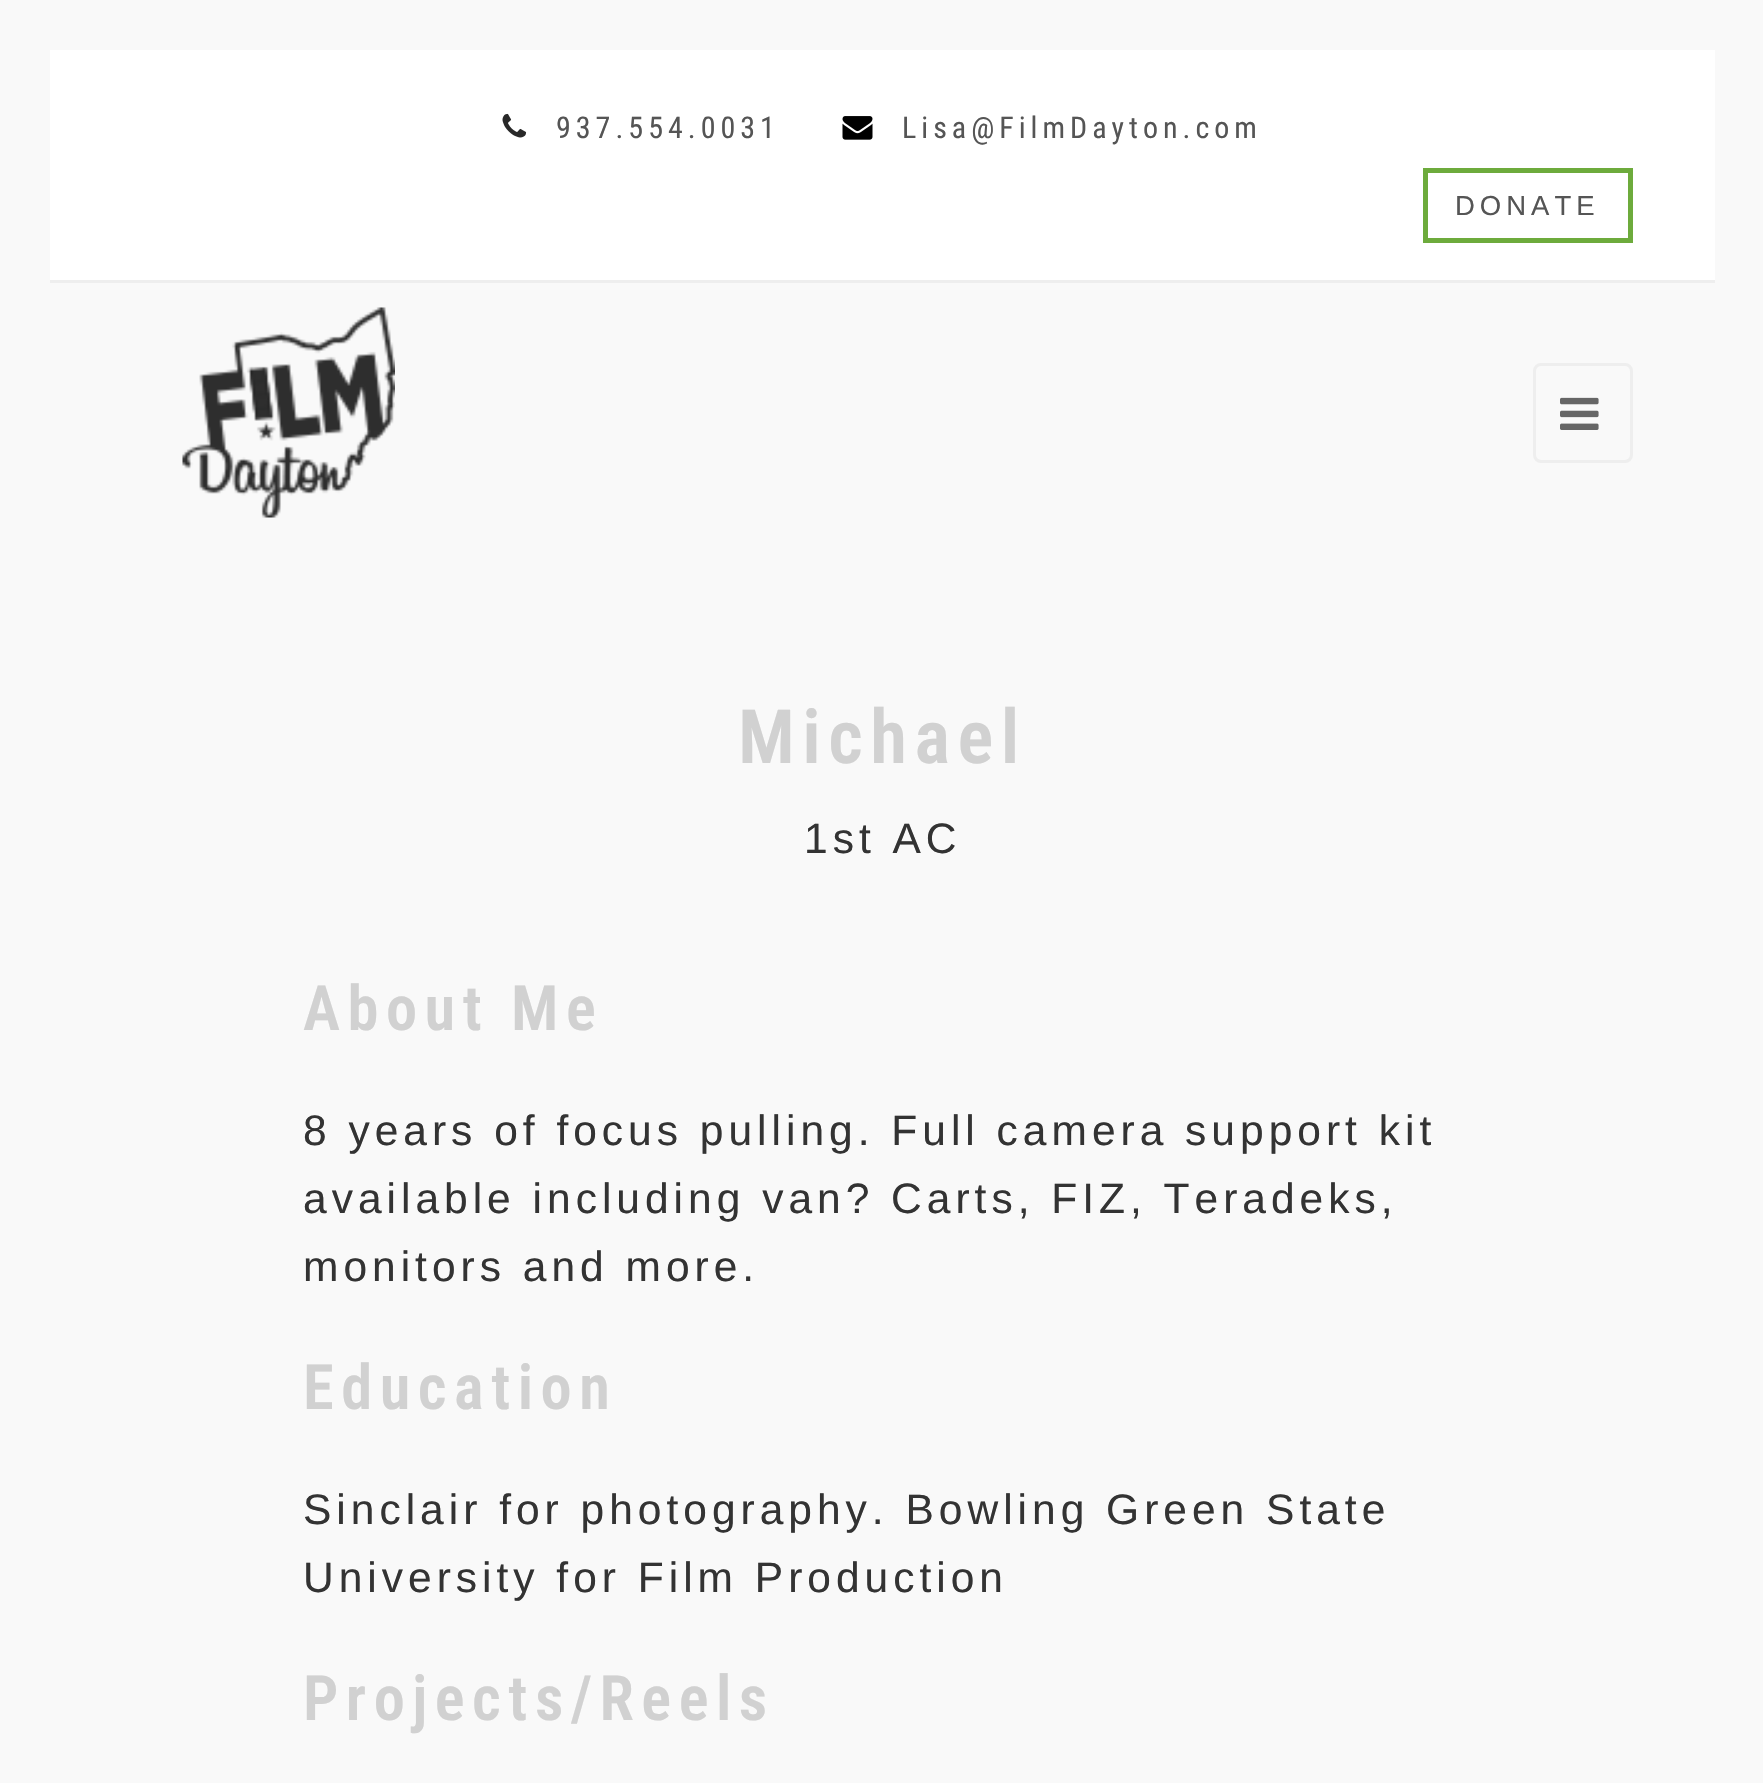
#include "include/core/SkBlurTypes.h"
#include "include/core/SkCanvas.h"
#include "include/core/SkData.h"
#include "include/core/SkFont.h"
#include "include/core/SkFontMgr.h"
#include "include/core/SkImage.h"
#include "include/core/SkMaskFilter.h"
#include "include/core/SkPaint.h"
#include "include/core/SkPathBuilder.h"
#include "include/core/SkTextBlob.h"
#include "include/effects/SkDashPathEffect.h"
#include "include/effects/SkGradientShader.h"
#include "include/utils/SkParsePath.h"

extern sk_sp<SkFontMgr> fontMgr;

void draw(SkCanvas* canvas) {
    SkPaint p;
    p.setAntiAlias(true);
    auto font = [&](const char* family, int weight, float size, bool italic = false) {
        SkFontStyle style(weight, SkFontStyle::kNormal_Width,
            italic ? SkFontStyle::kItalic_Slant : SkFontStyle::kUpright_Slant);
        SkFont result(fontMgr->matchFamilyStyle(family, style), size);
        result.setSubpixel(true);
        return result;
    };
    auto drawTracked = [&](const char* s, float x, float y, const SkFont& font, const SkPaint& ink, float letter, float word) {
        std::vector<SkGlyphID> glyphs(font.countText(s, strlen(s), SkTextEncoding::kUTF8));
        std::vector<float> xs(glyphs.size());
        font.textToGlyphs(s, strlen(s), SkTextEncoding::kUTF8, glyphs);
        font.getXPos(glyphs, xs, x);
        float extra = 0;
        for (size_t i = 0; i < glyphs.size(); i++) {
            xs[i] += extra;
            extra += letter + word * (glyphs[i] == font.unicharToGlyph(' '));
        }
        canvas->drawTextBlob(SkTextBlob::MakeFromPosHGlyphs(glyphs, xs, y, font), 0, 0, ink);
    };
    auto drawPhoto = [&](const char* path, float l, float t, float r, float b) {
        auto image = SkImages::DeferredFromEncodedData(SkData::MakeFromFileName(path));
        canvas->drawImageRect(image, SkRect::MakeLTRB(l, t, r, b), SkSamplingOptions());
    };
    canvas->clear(0xFFF9F9F9);
    p.setColor(0xFFFFFFFF);
    canvas->drawRect(SkRect::MakeLTRB(50, 50, 1715, 280), p);
    p.setColor(0xFFEEEEEE);
    canvas->drawRect(SkRect::MakeLTRB(50, 280, 1715, 283), p);
    drawPhoto("media/1.png", 502, 113, 527, 138);
    auto font1 = font("Roboto Condensed", 400, 30);
    p.setColor(0xFF555555);
    drawTracked("937.554.0031", 556, 138, font1, p, 5, 0);
    drawPhoto("media/2.png", 842, 116, 873, 140);
    drawTracked("Lisa@FilmDayton.com", 902, 138, font1, p, 5, 0);
    p.setStyle(SkPaint::kStroke_Style);
    p.setStrokeWidth(5);
    p.setColor(0xFF6DAB3C);
    canvas->drawRect(SkRect::MakeLTRB(1425.5f, 170.5f, 1630.5f, 240.5f), p);
    auto font2 = font("Liberation Sans", 400, 27.5f);
    p.setStyle(SkPaint::kFill_Style);
    p.setColor(0xFF555555);
    drawTracked("DONATE", 1455, 215, font2, p, 5, 0);
    drawPhoto("media/3.png", 182, 307, 395, 518);
    p.setStyle(SkPaint::kStroke_Style);
    p.setStrokeWidth(3);
    p.setColor(0xFFEEEEEE);
    canvas->drawRoundRect(SkRect::MakeLTRB(1534.5f, 364.5f, 1631.5f, 461.5f), 6.5f, 6.5f, p);
    drawPhoto("media/4.png", 1560, 397, 1599, 430);
    auto font3 = font("Roboto Condensed", 600, 75);
    p.setStyle(SkPaint::kFill_Style);
    p.setColor(0xFFD1D1D1);
    drawTracked("Michael", 738, 763, font3, p, 7.5f, 0);
    auto font4 = font("Liberation Sans", 400, 42.5f);
    p.setColor(0xFF333333);
    drawTracked("1st AC", 804, 853, font4, p, 5, 0);
    auto font5 = font("Roboto Condensed", 600, 62.5f);
    p.setColor(0xFFD1D1D1);
    drawTracked("About Me", 303, 1030, font5, p, 7.5f, 0);
    p.setColor(0xFF333333);
    {
        const struct { const char* s; float x, y; } items[] = {
            {"8 years of focus pulling. Full camera support kit", 303, 1145},
            {"available including van? Carts, FIZ, Teradeks,", 303, 1213},
            {"monitors and more.", 303, 1281},
        };
        for (auto [s, x, y] : items) {
            drawTracked(s, x, y, font4, p, 5, 0);
        }
    }
    p.setColor(0xFFD1D1D1);
    drawTracked("Education", 303, 1409, font5, p, 7.5f, 0);
    p.setColor(0xFF333333);
    drawTracked("Sinclair for photography. Bowling Green State", 303, 1524, font4, p, 5, 0);
    drawTracked("University for Film Production", 303, 1592, font4, p, 5, 0);
    p.setColor(0xFFD1D1D1);
    drawTracked("Projects/Reels", 303, 1720, font5, p, 7.5f, 0);
}
